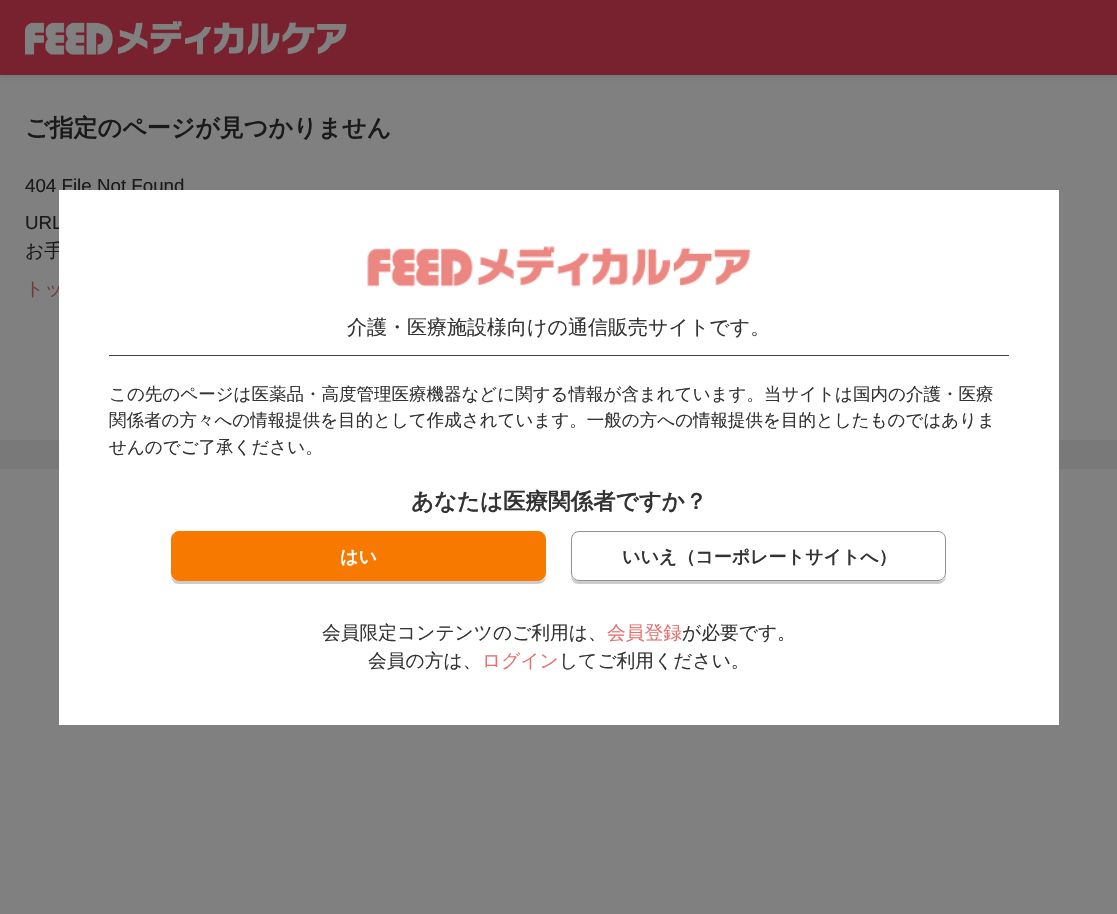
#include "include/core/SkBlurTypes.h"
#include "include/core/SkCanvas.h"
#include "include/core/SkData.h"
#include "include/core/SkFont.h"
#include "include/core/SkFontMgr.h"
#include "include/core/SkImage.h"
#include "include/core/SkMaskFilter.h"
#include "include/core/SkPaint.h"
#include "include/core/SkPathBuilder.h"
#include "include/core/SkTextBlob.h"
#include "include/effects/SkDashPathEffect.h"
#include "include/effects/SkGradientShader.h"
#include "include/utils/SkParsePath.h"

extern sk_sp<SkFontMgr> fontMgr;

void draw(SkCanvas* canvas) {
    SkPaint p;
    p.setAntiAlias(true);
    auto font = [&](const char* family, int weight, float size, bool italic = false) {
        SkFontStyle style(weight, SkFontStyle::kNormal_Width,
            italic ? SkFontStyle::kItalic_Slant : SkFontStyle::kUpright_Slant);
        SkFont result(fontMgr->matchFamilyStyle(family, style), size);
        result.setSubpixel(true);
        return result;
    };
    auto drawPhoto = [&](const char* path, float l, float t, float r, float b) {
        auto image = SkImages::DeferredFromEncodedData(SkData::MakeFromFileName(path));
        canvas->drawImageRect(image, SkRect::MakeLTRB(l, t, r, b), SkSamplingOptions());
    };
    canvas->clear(0xFF808080);
    p.setColor(0x1A000000);
    p.setMaskFilter(SkMaskFilter::MakeBlur(kNormal_SkBlurStyle, 2.5f));
    canvas->drawRect(SkRect::MakeLTRB(0, 3, 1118, 76), p);
    p.setMaskFilter(nullptr);
    p.setColor(0xFF78222F);
    canvas->drawRect(SkRect::MakeLTRB(0, 0, 1117, 75), p);
    drawPhoto("media/1.png", 25, 21, 347, 55);
    auto font1 = font("WenQuanYi Zen Hei", 700, 24);
    p.setColor(0xFF1A1A1A);
    canvas->drawString("ご指定のページが見つかりません", 25, 136, font1, p);
    auto font2 = font("Liberation Sans", 400, 18.75f);
    canvas->drawString("404 File Not Found", 25, 192, font2, p);
    canvas->drawString("URL", 25, 229, font2, p);
    auto font3 = font("WenQuanYi Zen Hei", 500, 18.75f);
    canvas->drawString("お手", 25, 257, font3, p);
    p.setColor(0xFF733939);
    canvas->drawString("トッ", 25, 295, font3, p);
    {
        const struct { float l, t, r, b; SkColor color; } items[] = {
            {0, 440, 1117, 469, 0xFF797979},
            {59, 190, 1059, 725, 0xFFFFFFFF},
            {109, 355, 1009, 356, 0xFF434343},
        };
        for (auto [l, t, r, b, color] : items) {
            p.setColor(color);
            canvas->drawRect(SkRect::MakeLTRB(l, t, r, b), p);
        }
    }
    drawPhoto("media/2.png", 367, 246, 751, 287);
    auto font4 = font("WenQuanYi Zen Hei", 500, 20);
    p.setColor(0xFF333333);
    canvas->drawString("介護・医療施設様向けの通信販売サイトです。", 347, 334, font4, p);
    auto font5 = font("WenQuanYi Zen Hei", 500, 17.5f);
    {
        const struct { const char* s; float x, y; } items[] = {
            {"この先のページは医薬品・高度管理医療機器などに関する情報が含まれています。当サイトは国内の介護・医療", 109, 400},
            {"関係者の方々への情報提供を目的として作成されています。一般の方への情報提供を目的としたものではありま", 109, 426},
            {"せんのでご了承ください。", 109, 453},
        };
        for (auto [s, x, y] : items) {
            canvas->drawString(s, x, y, font5, p);
        }
    }
    auto font6 = font("WenQuanYi Zen Hei", 700, 22.5f);
    canvas->drawString("あなたは医療関係者ですか？", 411, 509, font6, p);
    p.setColor(0xFFCCCCCC);
    canvas->drawPath(SkPathBuilder().moveTo(171, 540).lineTo(171, 565).cubicTo(171, 571, 169, 584, 179, 584).lineTo(538, 584).cubicTo(543, 584, 546, 580, 546, 576).cubicTo(545, 579, 542, 581, 539, 581).lineTo(179, 581).cubicTo(175, 581, 171, 578, 171, 574).close().detach(), p);
    p.setColor(0xFFF77900);
    canvas->drawRoundRect(SkRect::MakeLTRB(171.5f, 531.5f, 545.5f, 580.5f), 7.5f, 7.5f, p);
    p.setStyle(SkPaint::kStroke_Style);
    p.setStrokeWidth(1);
    canvas->drawRoundRect(SkRect::MakeLTRB(171.5f, 531.5f, 545.5f, 580.5f), 7.5f, 7.5f, p);
    auto font7 = font("WenQuanYi Zen Hei", 700, 18);
    p.setStyle(SkPaint::kFill_Style);
    p.setColor(0xFFFFFFFF);
    canvas->drawString("はい", 340, 563, font7, p);
    p.setColor(0xFFCCCCCC);
    canvas->drawPath(SkPathBuilder().moveTo(571, 540).lineTo(571, 565).cubicTo(571, 571, 569, 584, 579, 584).lineTo(938, 584).cubicTo(943, 584, 946, 580, 946, 576).cubicTo(945, 579, 942, 581, 939, 581).lineTo(579, 581).cubicTo(575, 581, 571, 578, 571, 574).close().detach(), p);
    p.setColor(0xFFFFFFFF);
    canvas->drawRoundRect(SkRect::MakeLTRB(571.5f, 531.5f, 945.5f, 580.5f), 7.5f, 7.5f, p);
    p.setStyle(SkPaint::kStroke_Style);
    p.setColor(0xFF909090);
    canvas->drawRoundRect(SkRect::MakeLTRB(571.5f, 531.5f, 945.5f, 580.5f), 7.5f, 7.5f, p);
    p.setStyle(SkPaint::kFill_Style);
    p.setColor(0xFF333333);
    canvas->drawString("いいえ（コーポレートサイトへ）", 622, 563, font7, p);
    canvas->drawString("会員限定コンテンツのご利用は、", 322, 639, font3, p);
    p.setColor(0xFFE67171);
    canvas->drawString("会員登録", 607, 639, font3, p);
    p.setColor(0xFF333333);
    canvas->drawString("が必要です。", 682, 639, font3, p);
    canvas->drawString("会員の方は、", 368, 667, font3, p);
    p.setColor(0xFFE67171);
    canvas->drawString("ログイン", 482, 667, font3, p);
    p.setColor(0xFF333333);
    canvas->drawString("してご利用ください。", 559, 667, font3, p);
}
